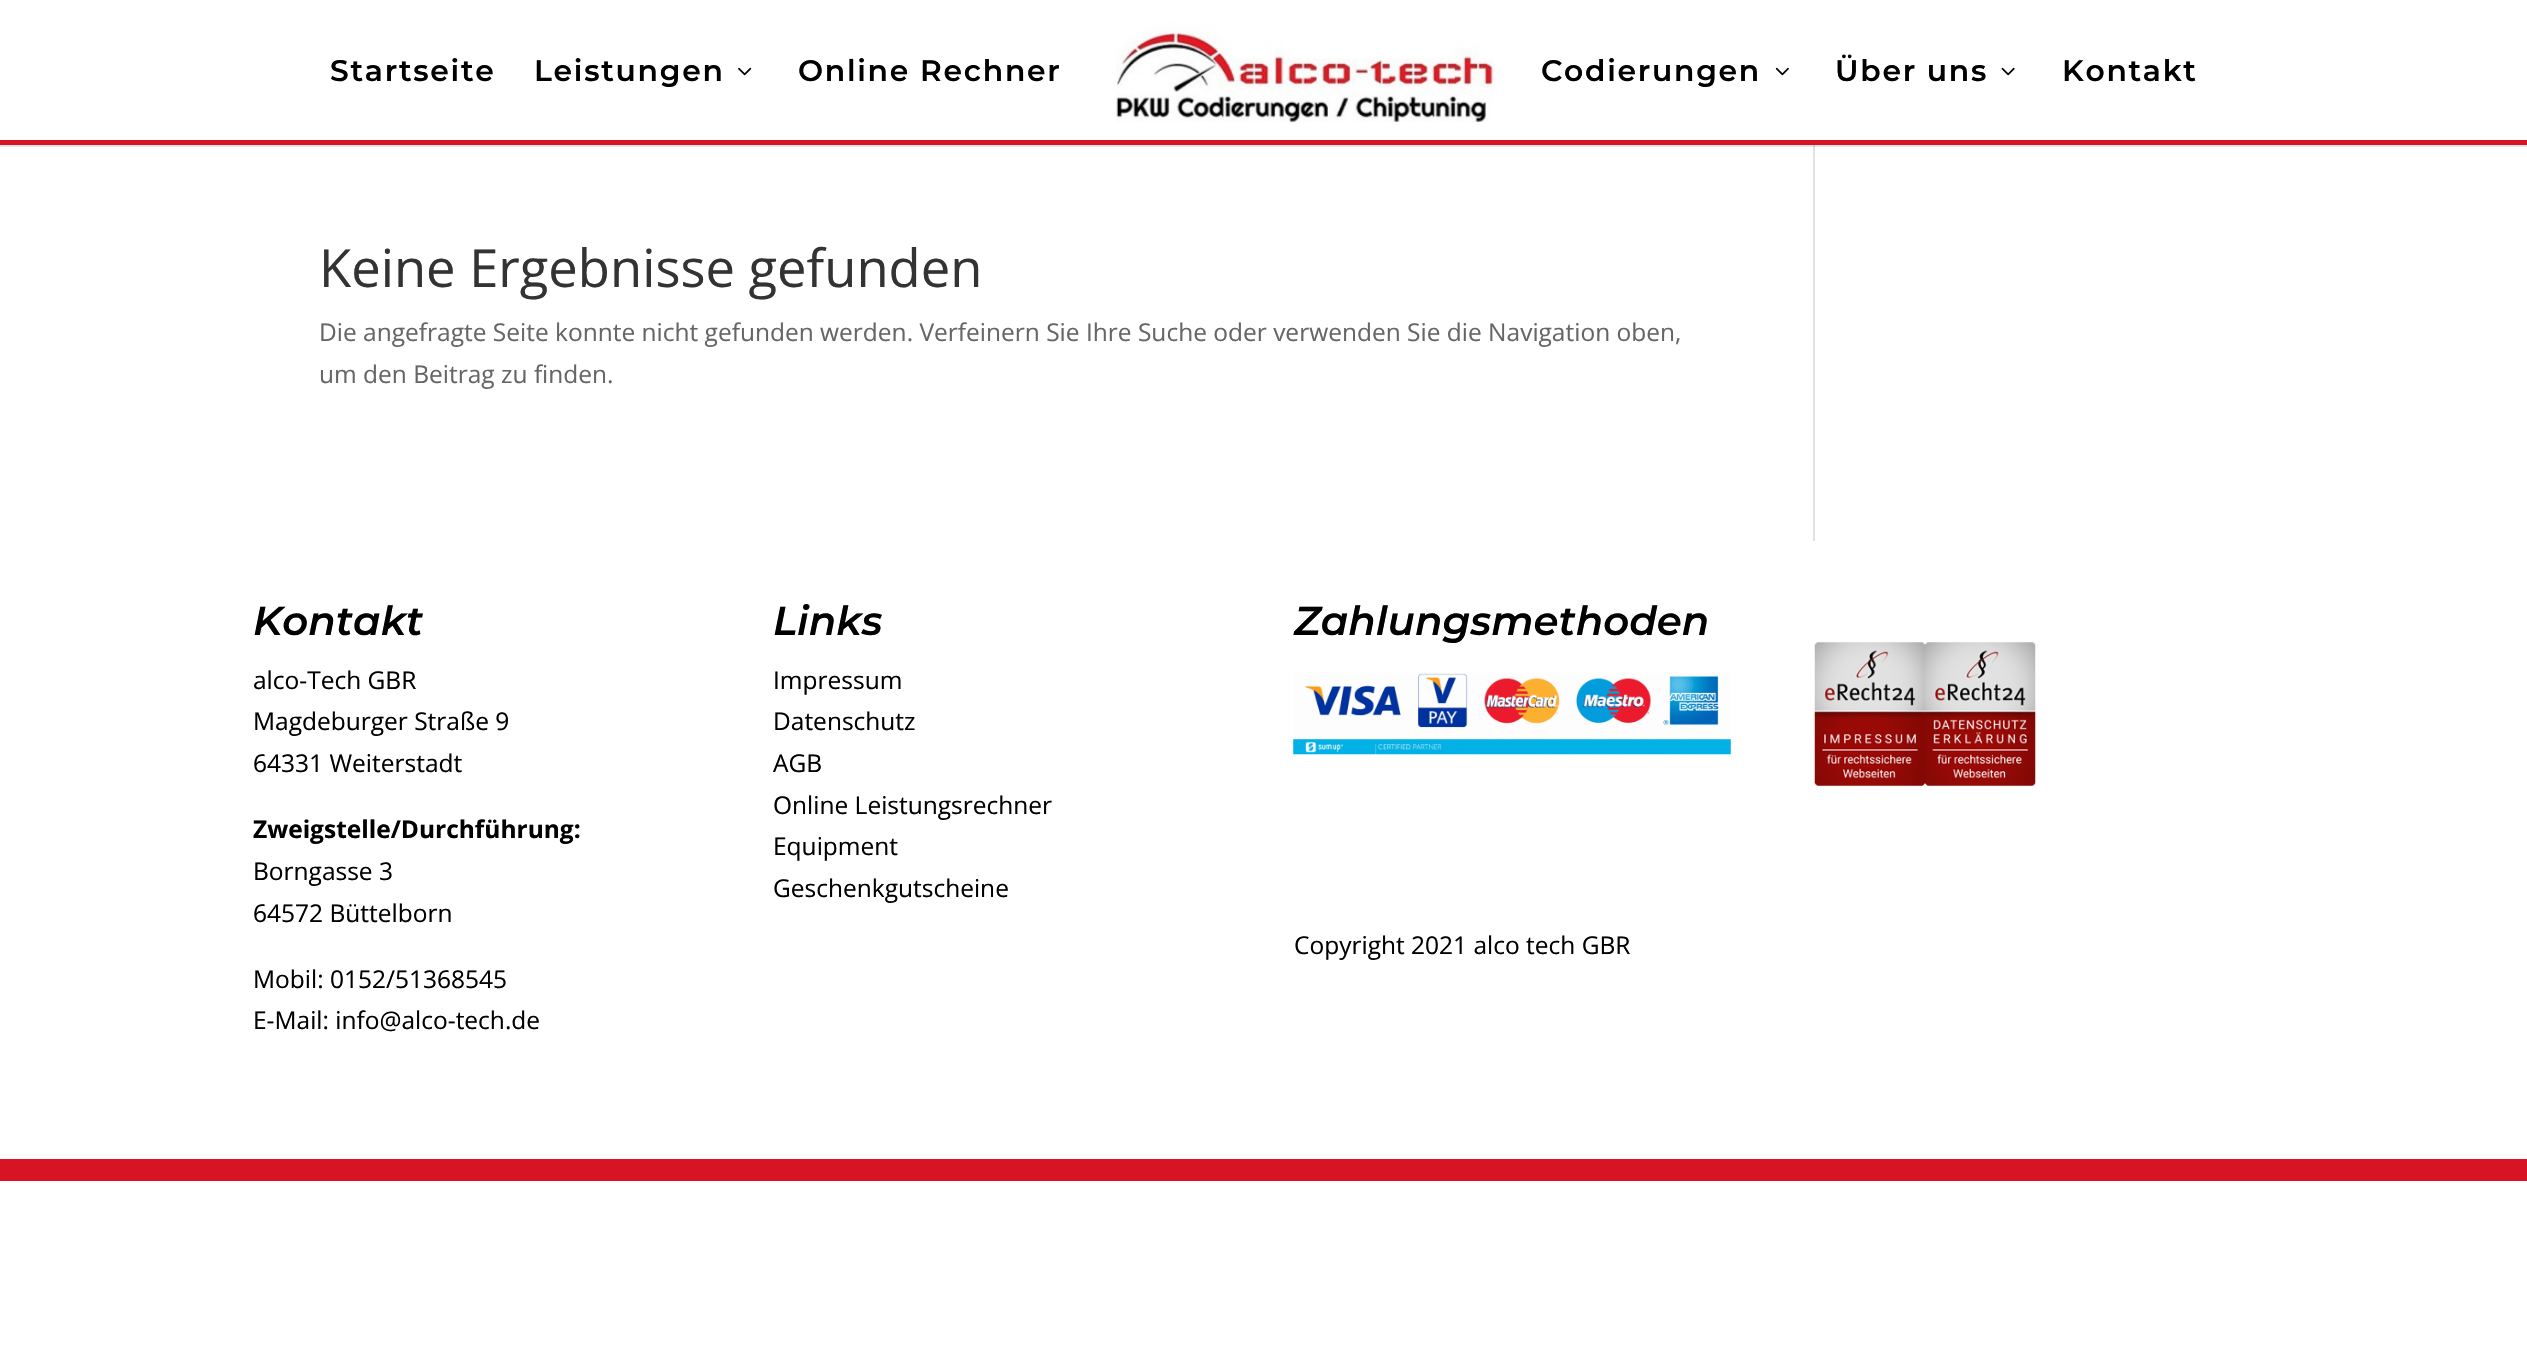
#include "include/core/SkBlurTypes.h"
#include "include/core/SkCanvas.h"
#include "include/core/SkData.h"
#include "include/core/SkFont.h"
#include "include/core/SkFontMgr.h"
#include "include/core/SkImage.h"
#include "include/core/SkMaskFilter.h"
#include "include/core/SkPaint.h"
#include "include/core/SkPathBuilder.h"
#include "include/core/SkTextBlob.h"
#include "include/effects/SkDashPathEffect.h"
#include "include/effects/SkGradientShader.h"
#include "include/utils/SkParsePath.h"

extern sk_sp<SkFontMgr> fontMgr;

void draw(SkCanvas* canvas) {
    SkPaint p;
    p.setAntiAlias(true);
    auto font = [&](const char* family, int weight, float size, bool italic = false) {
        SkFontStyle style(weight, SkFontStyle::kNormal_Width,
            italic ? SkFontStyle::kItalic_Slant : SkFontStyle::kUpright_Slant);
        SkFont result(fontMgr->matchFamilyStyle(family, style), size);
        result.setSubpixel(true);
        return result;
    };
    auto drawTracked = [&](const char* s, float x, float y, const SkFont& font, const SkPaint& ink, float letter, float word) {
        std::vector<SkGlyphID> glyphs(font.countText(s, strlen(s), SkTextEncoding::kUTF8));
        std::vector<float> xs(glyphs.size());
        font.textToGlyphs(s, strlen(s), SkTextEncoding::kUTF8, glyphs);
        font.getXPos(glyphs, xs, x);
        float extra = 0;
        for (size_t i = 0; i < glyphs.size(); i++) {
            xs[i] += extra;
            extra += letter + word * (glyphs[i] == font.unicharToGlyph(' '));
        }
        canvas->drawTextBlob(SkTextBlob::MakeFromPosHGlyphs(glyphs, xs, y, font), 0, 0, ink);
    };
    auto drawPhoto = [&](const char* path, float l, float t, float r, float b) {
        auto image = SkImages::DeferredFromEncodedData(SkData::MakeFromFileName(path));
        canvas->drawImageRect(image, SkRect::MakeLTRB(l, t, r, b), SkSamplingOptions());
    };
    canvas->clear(0xFFFFFFFF);
    {
        const struct { float l, t, r, b; SkColor color; } items[] = {
            {0, 145, 2527, 147, 0xFFE6E6E6},
            {1813, 140, 1815, 541, 0xFFE2E2E2},
            {0, 140, 2527, 145, 0xFFD81324},
        };
        for (auto [l, t, r, b, color] : items) {
            p.setColor(color);
            canvas->drawRect(SkRect::MakeLTRB(l, t, r, b), p);
        }
    }
    auto font1 = font("Montserrat", 600, 29.75f);
    p.setColor(0xFF000000);
    drawTracked("Startseite", 330, 81, font1, p, 1.75f, 0);
    drawTracked("Leistungen", 534, 81, font1, p, 1.75f, 0);
    drawPhoto("media/1.png", 738, 67, 752, 76);
    drawTracked("Online Rechner", 798, 81, font1, p, 1.75f, 0);
    drawPhoto("media/2.png", 1116, 23, 1495, 123);
    drawTracked("Codierungen", 1541, 81, font1, p, 1.75f, 0);
    drawPhoto("media/3.png", 1775, 67, 1789, 76);
    drawTracked("Über uns", 1835, 81, font1, p, 1.75f, 0);
    drawPhoto("media/4.png", 2001, 67, 2015, 76);
    drawTracked("Kontakt", 2062, 81, font1, p, 1.75f, 0);
    auto font2 = font("Open Sans", 400, 52.5f);
    p.setColor(0xFF333333);
    canvas->drawString("Keine Ergebnisse gefunden", 319, 287, font2, p);
    auto font3 = font("Open Sans", 400, 24.5f);
    p.setColor(0xFF666666);
    canvas->drawString("Die angefragte Seite konnte nicht gefunden werden. Verfeinern Sie Ihre Suche oder verwenden Sie die Navigation oben,", 319, 341, font3, p);
    canvas->drawString("um den Beitrag zu finden.", 319, 383, font3, p);
    p.setColor(0xFFCBCBCB);
    canvas->drawRect(SkRect::MakeLTRB(1813, 145, 1815, 147), p);
    p.setColor(0xFFD81324);
    canvas->drawRect(SkRect::MakeLTRB(0, 1159, 2527, 1181), p);
    auto font4 = font("Montserrat", 600, 40.25f, true);
    p.setColor(0xFF000000);
    canvas->drawString("Kontakt", 253, 635, font4, p);
    {
        const struct { const char* s; float x, y; } items[] = {
            {"alco-Tech GBR", 253, 689},
            {"Magdeburger Straße 9", 253, 730},
            {"64331 Weiterstadt", 253, 772},
        };
        for (auto [s, x, y] : items) {
            canvas->drawString(s, x, y, font3, p);
        }
    }
    auto font5 = font("Open Sans", 700, 24.5f);
    canvas->drawString("Zweigstelle/Durchführung:", 253, 838, font5, p);
    {
        const struct { const char* s; float x, y; } items[] = {
            {"Borngasse 3", 253, 880},
            {"64572 Büttelborn", 253, 922},
            {"Mobil: 0152/51368545", 253, 988},
            {"E-Mail: info@alco-tech.de", 253, 1029},
        };
        for (auto [s, x, y] : items) {
            canvas->drawString(s, x, y, font3, p);
        }
    }
    canvas->drawString("Links", 773, 635, font4, p);
    {
        const struct { const char* s; float x, y; } items[] = {
            {"Impressum", 773, 689},
            {"Datenschutz", 773, 730},
            {"AGB", 773, 772},
            {"Online Leistungsrechner", 773, 814},
            {"Equipment", 773, 855},
            {"Geschenkgutscheine", 773, 897},
        };
        for (auto [s, x, y] : items) {
            canvas->drawString(s, x, y, font3, p);
        }
    }
    canvas->drawString("Zahlungsmethoden", 1294, 635, font4, p);
    drawPhoto("media/5.png", 1293, 673, 1731, 755);
    canvas->drawString("Copyright 2021 alco tech GBR", 1294, 954, font3, p);
    drawPhoto("media/6.png", 1814, 642, 1925, 786);
    drawPhoto("media/7.png", 1925, 642, 2036, 786);
}
